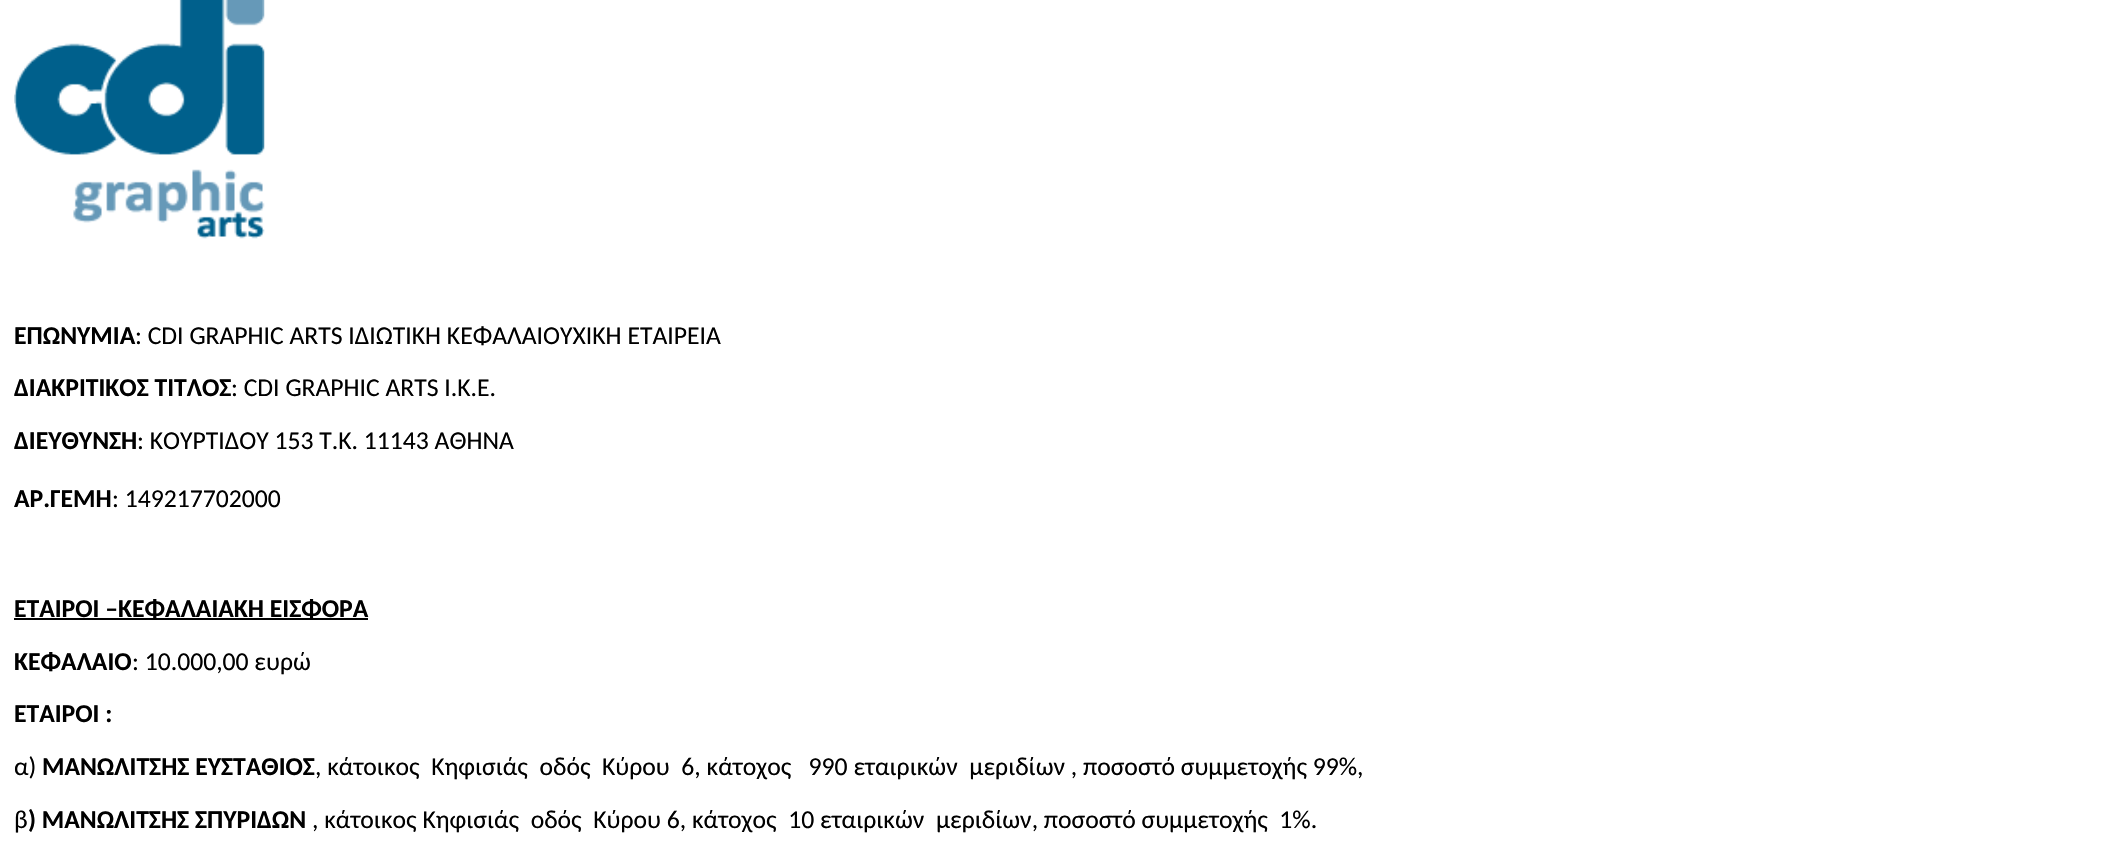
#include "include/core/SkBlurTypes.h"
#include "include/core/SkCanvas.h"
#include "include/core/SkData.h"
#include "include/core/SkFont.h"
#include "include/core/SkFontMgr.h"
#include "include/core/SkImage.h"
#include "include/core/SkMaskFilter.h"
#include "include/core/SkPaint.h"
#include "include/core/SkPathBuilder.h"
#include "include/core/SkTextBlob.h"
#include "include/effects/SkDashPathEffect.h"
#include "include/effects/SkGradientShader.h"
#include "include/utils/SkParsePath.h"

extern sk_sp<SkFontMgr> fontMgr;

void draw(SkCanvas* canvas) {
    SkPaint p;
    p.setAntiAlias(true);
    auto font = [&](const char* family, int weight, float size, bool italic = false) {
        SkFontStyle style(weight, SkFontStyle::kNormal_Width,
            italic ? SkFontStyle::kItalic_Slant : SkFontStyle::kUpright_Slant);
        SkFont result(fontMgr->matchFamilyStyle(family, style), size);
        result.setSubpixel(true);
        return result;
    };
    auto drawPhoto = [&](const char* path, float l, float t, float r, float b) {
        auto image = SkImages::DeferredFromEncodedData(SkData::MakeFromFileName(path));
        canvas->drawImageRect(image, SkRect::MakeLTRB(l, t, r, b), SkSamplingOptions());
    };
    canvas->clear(0xFFFFFFFF);
    drawPhoto("media/1.png", 14, 0, 265, 239);
    auto font1 = font("Carlito", 700, 25.65f);
    p.setColor(0xFF000000);
    canvas->drawString("ΕΠΩΝΥΜΙΑ", 14, 344, font1, p);
    auto font2 = font("Carlito", 400, 25.65f);
    canvas->drawString(": CDI GRAPHIC ARTS ΙΔΙΩΤΙΚΗ ΚΕΦΑΛΑΙΟΥΧΙΚΗ ΕΤΑΙΡΕΙΑ", 135, 344, font2, p);
    canvas->drawString("ΔΙΑΚΡΙΤΙΚΟΣ ΤΙΤΛΟΣ", 14, 396, font1, p);
    canvas->drawString(": CDI GRAPHIC ARTS I.K.E.", 231, 396, font2, p);
    canvas->drawString("ΔΙΕΥΘΥΝΣΗ", 14, 449, font1, p);
    canvas->drawString(": ΚΟΥΡΤΙΔΟΥ 153 Τ.Κ. 11143 ΑΘΗΝΑ", 137, 449, font2, p);
    canvas->drawString("ΑΡ.ΓΕΜΗ", 14, 507, font1, p);
    canvas->drawString(": 149217702000", 112, 507, font2, p);
    canvas->drawRect(SkRect::MakeLTRB(14, 618, 368, 620), p);
    canvas->drawString("ΕΤΑΙΡΟΙ –ΚΕΦΑΛΑΙΑΚΗ ΕΙΣΦΟΡΑ", 14, 617, font1, p);
    canvas->drawString("ΚΕΦΑΛΑIO", 14, 670, font1, p);
    canvas->drawString(": 10.000,00 ευρώ", 132, 670, font2, p);
    canvas->drawString("ΕΤΑΙΡΟΙ :", 14, 722, font1, p);
    canvas->drawString("α)", 14, 775, font2, p);
    canvas->drawString("ΜΑΝΩΛΙΤΣΗΣ ΕΥΣΤΑΘΙΟΣ", 42, 775, font1, p);
    canvas->drawString(", κάτοικος  Κηφισιάς  οδός  Κύρου  6, κάτοχος   990 εταιρικών  μεριδίων , ποσοστό συμμετοχής 99%,", 315, 775, font2, p);
    canvas->drawString("β", 14, 828, font2, p);
    canvas->drawString(") ΜΑΝΩΛΙΤΣΗΣ ΣΠΥΡΙΔΩΝ", 28, 828, font1, p);
    canvas->drawString(", κάτοικος Κηφισιάς  οδός  Κύρου 6, κάτοχος  10 εταιρικών  μεριδίων, ποσοστό συμμετοχής  1%.", 312, 828, font2, p);
}
